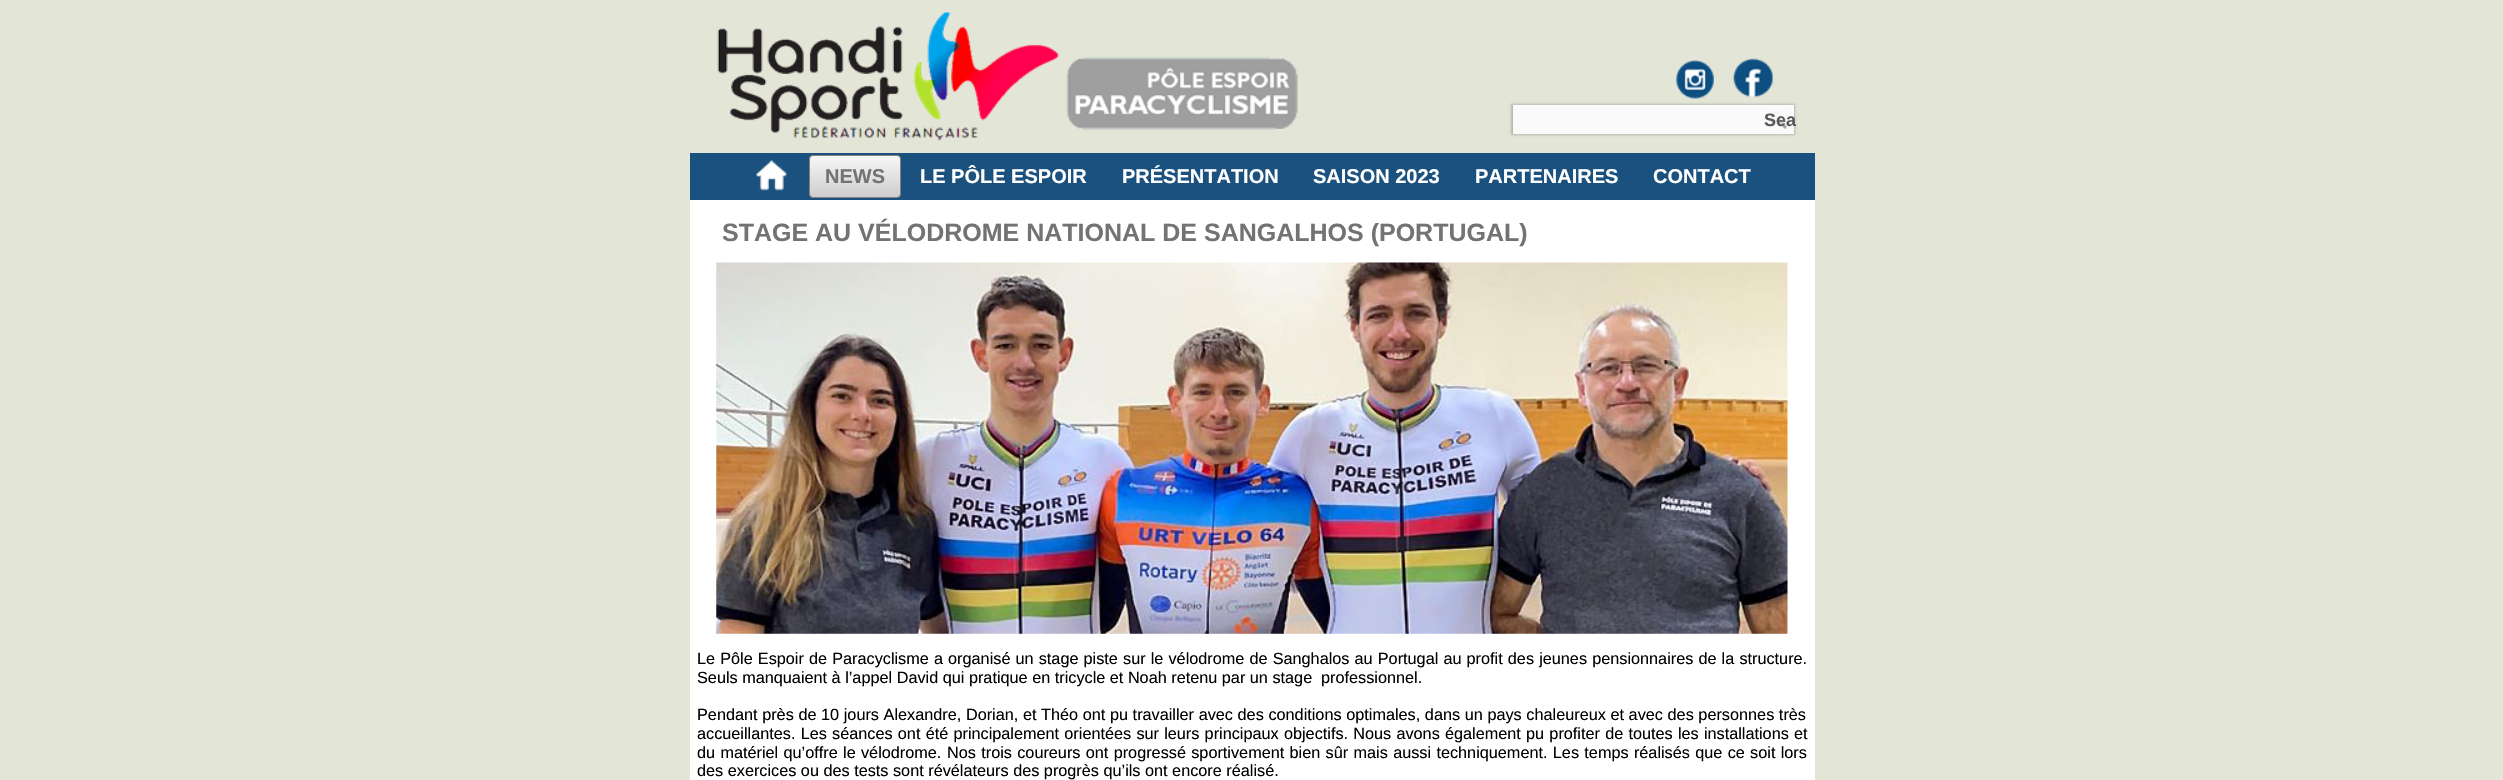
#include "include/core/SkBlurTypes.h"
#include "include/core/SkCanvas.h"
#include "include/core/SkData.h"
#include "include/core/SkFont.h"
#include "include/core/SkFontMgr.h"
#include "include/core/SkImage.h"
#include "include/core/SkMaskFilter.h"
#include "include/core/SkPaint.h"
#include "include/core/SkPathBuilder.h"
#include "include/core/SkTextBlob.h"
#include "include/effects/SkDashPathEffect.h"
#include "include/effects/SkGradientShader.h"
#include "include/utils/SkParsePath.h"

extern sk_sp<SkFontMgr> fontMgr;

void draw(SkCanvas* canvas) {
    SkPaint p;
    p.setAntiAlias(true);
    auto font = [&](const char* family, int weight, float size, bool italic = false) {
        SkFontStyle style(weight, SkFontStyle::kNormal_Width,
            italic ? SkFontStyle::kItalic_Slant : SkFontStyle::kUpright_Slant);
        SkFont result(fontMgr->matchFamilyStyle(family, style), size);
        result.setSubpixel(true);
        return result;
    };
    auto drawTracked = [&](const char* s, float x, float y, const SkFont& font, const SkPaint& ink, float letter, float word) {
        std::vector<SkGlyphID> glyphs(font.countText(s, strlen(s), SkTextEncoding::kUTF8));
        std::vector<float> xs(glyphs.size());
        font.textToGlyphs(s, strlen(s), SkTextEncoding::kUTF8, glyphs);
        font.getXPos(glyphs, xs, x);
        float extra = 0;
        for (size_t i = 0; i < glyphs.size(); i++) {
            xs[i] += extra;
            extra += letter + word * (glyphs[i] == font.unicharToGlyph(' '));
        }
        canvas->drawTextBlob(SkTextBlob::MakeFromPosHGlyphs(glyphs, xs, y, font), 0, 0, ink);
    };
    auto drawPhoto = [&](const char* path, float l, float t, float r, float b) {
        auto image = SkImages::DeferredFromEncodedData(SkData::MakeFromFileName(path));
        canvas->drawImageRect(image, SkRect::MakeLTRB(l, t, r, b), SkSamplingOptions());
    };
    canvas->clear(0xFFE3E5D7);
    drawPhoto("media/1.png", 717, 12, 1298, 141);
    drawPhoto("media/2.png", 1676, 60, 1714, 99);
    drawPhoto("media/3.png", 1732, 58, 1773, 98);
    p.setColor(0x33000000);
    p.setMaskFilter(SkMaskFilter::MakeBlur(kNormal_SkBlurStyle, 1));
    canvas->drawRect(SkRect::MakeLTRB(1511, 104, 1795, 135), p);
    p.setMaskFilter(nullptr);
    p.setColor(0xFFFAFAFA);
    canvas->drawRect(SkRect::MakeLTRB(1513, 105, 1794, 134), p);
    drawPhoto("media/4.png", 1771, 111, 1788, 129);
    auto font1 = font("Liberation Sans", 700, 18);
    p.setColor(0xFF595959);
    canvas->drawString("Sea", 1764, 126, font1, p);
    p.setColor(0xFF1B517E);
    canvas->drawRect(SkRect::MakeLTRB(690, 153, 1815, 200), p);
    drawPhoto("media/5.png", 756, 159, 787, 191);
    {
        const SkColor colors[] = {0xFFF7F7F7, 0xFFCCCCCC};
        const float stops[] = {0, 1};
        const SkPoint ends[] = {{855, 155}, {855, 198}};
        p.setShader(SkGradientShader::MakeLinear(ends, colors, stops, 2, SkTileMode::kClamp));
        p.setAlpha(255);
    }
    canvas->drawRoundRect(SkRect::MakeLTRB(809.5f, 155.5f, 900.5f, 197.5f), 3.5f, 3.5f, p);
    p.setStyle(SkPaint::kStroke_Style);
    p.setStrokeWidth(1);
    p.setShader(nullptr);
    p.setColor(0xFF828282);
    canvas->drawRoundRect(SkRect::MakeLTRB(809.5f, 155.5f, 900.5f, 197.5f), 3.5f, 3.5f, p);
    auto font2 = font("Liberation Sans", 700, 20);
    p.setStyle(SkPaint::kFill_Style);
    p.setColor(0xFF737373);
    canvas->drawString("NEWS", 825, 183, font2, p);
    p.setColor(0xFFFFFFFF);
    {
        const struct { const char* s; float x, y; } items[] = {
            {"LE PÔLE ESPOIR", 920, 183},
            {"PRÉSENTATION", 1122, 183},
            {"SAISON 2023", 1313, 183},
            {"PARTENAIRES", 1475, 183},
            {"CONTACT", 1653, 183},
        };
        for (auto [s, x, y] : items) {
            canvas->drawString(s, x, y, font2, p);
        }
    }
    canvas->drawRect(SkRect::MakeLTRB(690, 200, 1815, 780), p);
    auto font3 = font("Liberation Sans", 700, 25);
    p.setColor(0xFF737373);
    canvas->drawString("STAGE AU VÉLODROME NATIONAL DE SANGALHOS (PORTUGAL)", 722, 241, font3, p);
    drawPhoto("media/6.png", 716, 262, 1788, 634);
    auto font4 = font("Liberation Sans", 400, 16.25f);
    p.setColor(0xFF000000);
    drawTracked("Le Pôle Espoir de Paracyclisme a organisé un stage piste sur le vélodrome de Sanghalos au Portugal au profit des jeunes pensionnaires de la structure.", 697, 664, font4, p, 0, 0.6f);
    canvas->drawString("Seuls manquaient à l’appel David qui pratique en tricycle et Noah retenu par un stage", 697, 683, font4, p);
    canvas->drawString("professionnel.", 1321, 683, font4, p);
    drawTracked("Pendant près de 10 jours Alexandre, Dorian, et Théo ont pu travailler avec des conditions optimales, dans un pays chaleureux et avec des personnes très", 697, 720, font4, p, 0, 0.1f);
    drawTracked("accueillantes. Les séances ont été principalement orientées sur leurs principaux objectifs. Nous avons également pu profiter de toutes les installations et", 697, 739, font4, p, 0, 0.7f);
    drawTracked("du matériel qu’offre le vélodrome.", 697, 758, font4, p, 0, 0.8f);
    drawTracked("Nos trois coureurs ont progressé sportivement bien sûr mais aussi techniquement. Les temps réalisés que ce soit lors", 947, 758, font4, p, 0, 0.8f);
    canvas->drawString("des exercices ou des tests sont révélateurs des progrès qu’ils ont encore réalisé.", 697, 776, font4, p);
}
